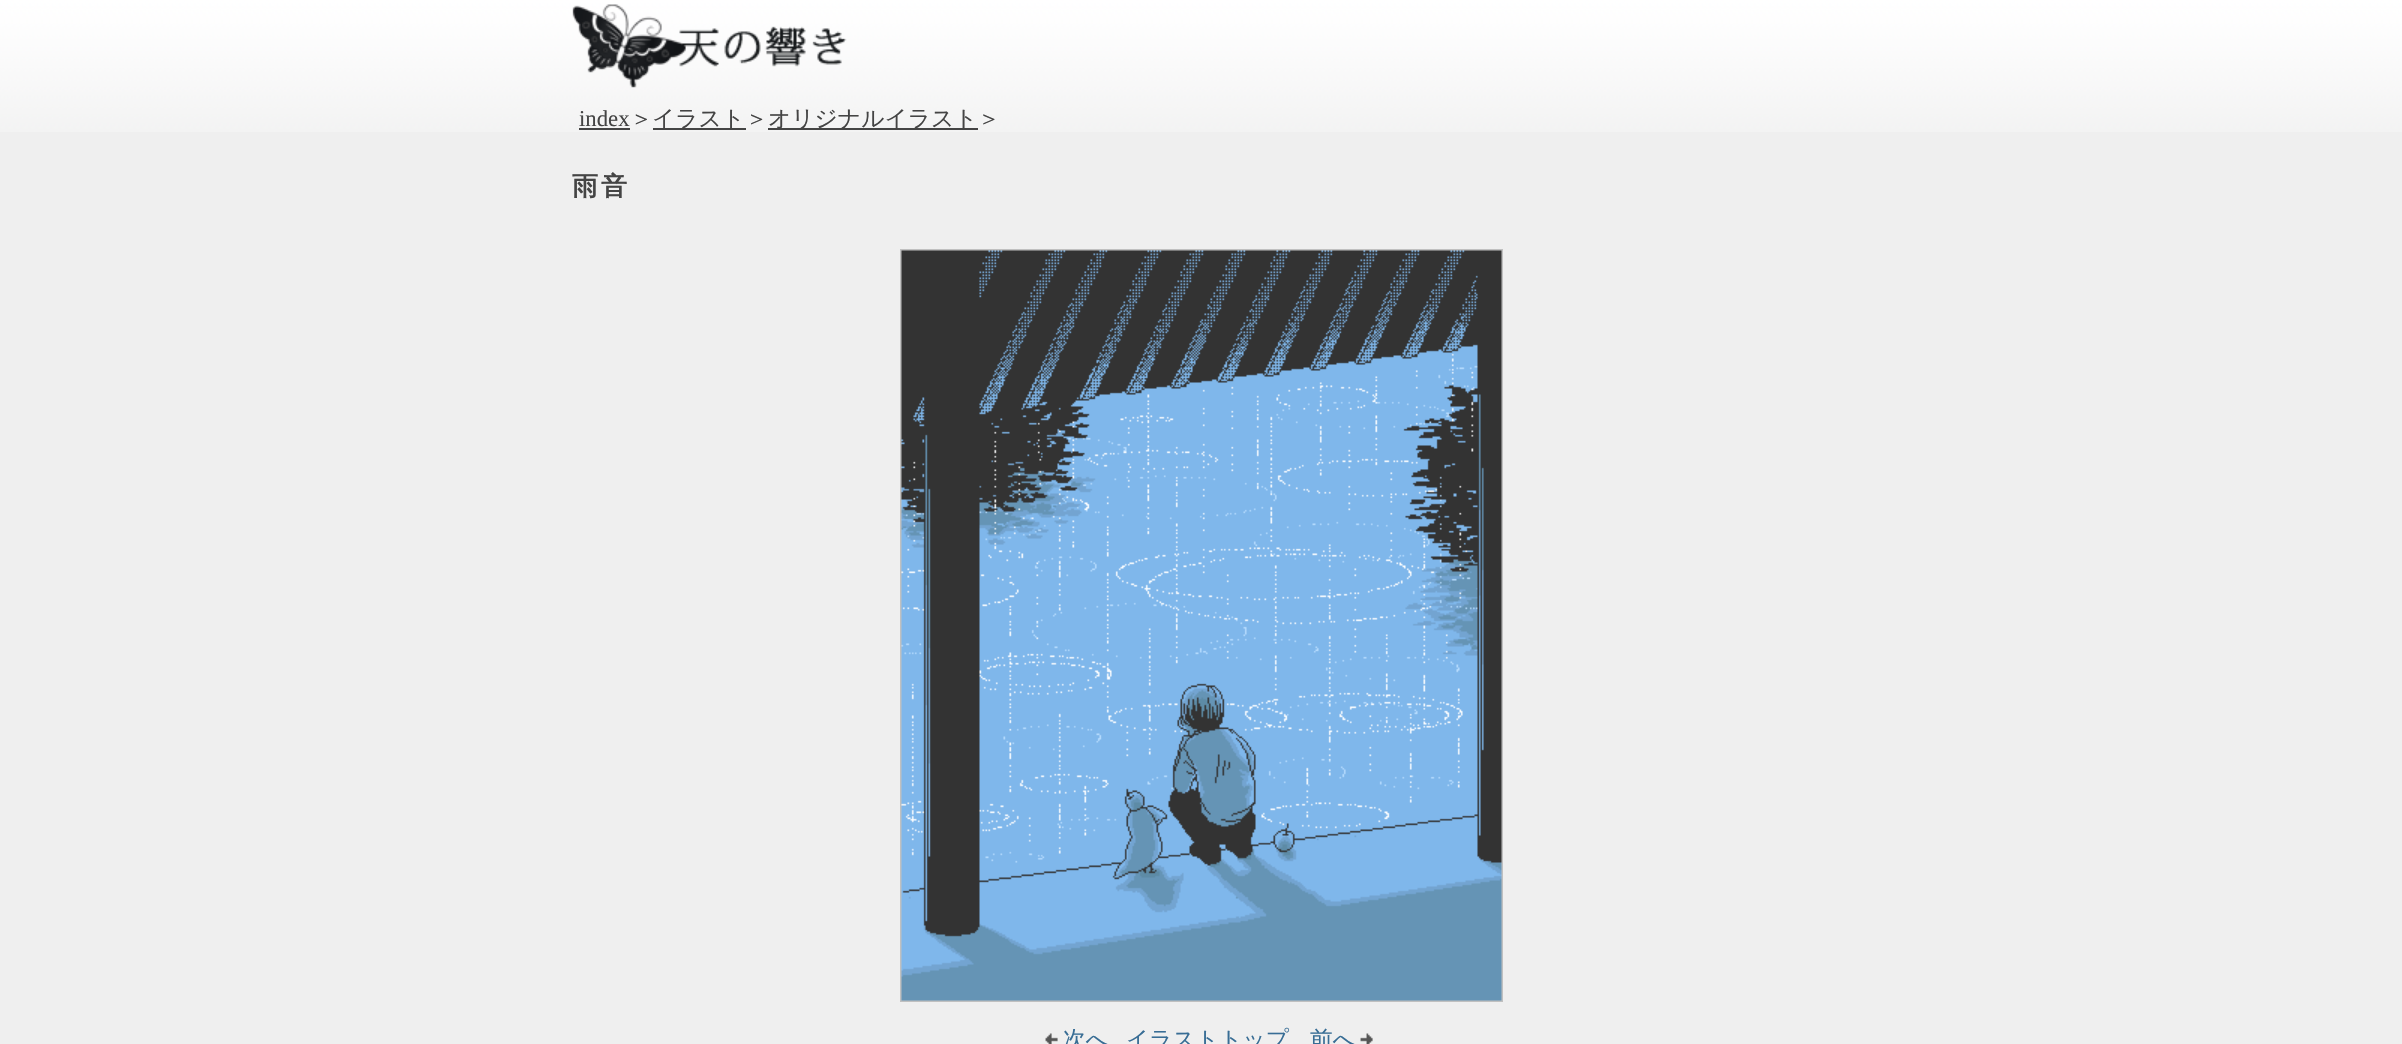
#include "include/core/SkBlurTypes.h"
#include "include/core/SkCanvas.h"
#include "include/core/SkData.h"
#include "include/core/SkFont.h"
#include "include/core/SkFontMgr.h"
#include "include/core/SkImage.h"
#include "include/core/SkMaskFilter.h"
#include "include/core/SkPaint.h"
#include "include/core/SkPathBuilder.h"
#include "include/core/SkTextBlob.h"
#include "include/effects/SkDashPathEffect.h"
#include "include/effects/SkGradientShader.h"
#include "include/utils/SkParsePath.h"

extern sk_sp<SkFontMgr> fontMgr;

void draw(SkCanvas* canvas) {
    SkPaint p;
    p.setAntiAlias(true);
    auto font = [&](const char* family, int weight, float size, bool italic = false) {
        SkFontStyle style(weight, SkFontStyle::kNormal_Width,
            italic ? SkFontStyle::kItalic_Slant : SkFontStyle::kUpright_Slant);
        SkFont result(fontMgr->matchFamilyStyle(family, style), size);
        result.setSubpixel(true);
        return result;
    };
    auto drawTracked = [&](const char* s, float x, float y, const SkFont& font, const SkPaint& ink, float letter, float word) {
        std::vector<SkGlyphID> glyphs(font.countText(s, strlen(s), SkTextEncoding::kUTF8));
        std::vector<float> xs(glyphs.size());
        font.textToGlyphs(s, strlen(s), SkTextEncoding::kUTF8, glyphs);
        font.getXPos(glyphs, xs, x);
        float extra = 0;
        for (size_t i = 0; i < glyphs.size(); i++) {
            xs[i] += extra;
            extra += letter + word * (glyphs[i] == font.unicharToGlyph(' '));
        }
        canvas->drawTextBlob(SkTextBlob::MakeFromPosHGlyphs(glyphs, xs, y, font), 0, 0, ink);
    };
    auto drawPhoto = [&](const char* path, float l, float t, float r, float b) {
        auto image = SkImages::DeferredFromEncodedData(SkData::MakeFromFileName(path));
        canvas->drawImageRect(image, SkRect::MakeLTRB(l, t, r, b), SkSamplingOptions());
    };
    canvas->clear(0xFFEFEFEF);
    drawPhoto("media/1.png", 0, 0, 2402, 132);
    drawPhoto("media/2.png", 572, 4, 847, 88);
    auto font1 = font("Liberation Serif", 400, 22.75f);
    p.setColor(0xFF444444);
    canvas->drawString("index", 579, 126, font1, p);
    canvas->drawRect(SkRect::MakeLTRB(579, 128, 630, 130), p);
    auto font2 = font("WenQuanYi Zen Hei", 500, 22.75f);
    canvas->drawString("＞", 630, 126, font2, p);
    canvas->drawRect(SkRect::MakeLTRB(653, 128, 746, 130), p);
    canvas->drawString("イラスト＞", 652, 126, font2, p);
    canvas->drawRect(SkRect::MakeLTRB(768, 128, 978, 130), p);
    canvas->drawString("オリジナルイラスト＞", 768, 126, font2, p);
    auto font3 = font("WenQuanYi Zen Hei", 700, 26);
    drawTracked("雨音", 572, 195, font3, p, 3, 0);
    p.setStyle(SkPaint::kStroke_Style);
    p.setStrokeWidth(2);
    p.setColor(0xFFC0C0C0);
    canvas->drawRect(SkRect::MakeLTRB(901, 250, 1502, 1001), p);
    drawPhoto("media/3.png", 901, 250, 1502, 1001);
    drawPhoto("media/4.png", 1045, 1033, 1058, 1044);
    p.setStyle(SkPaint::kFill_Style);
    p.setColor(0xFF386D95);
    {
        const struct { const char* s; float x, y; } items[] = {
            {"次へ", 1063, 1047},
            {"イラストトップ", 1126, 1047},
            {"前へ", 1310, 1047},
        };
        for (auto [s, x, y] : items) {
            canvas->drawString(s, x, y, font2, p);
        }
    }
    drawPhoto("media/5.png", 1360, 1033, 1373, 1044);
}
